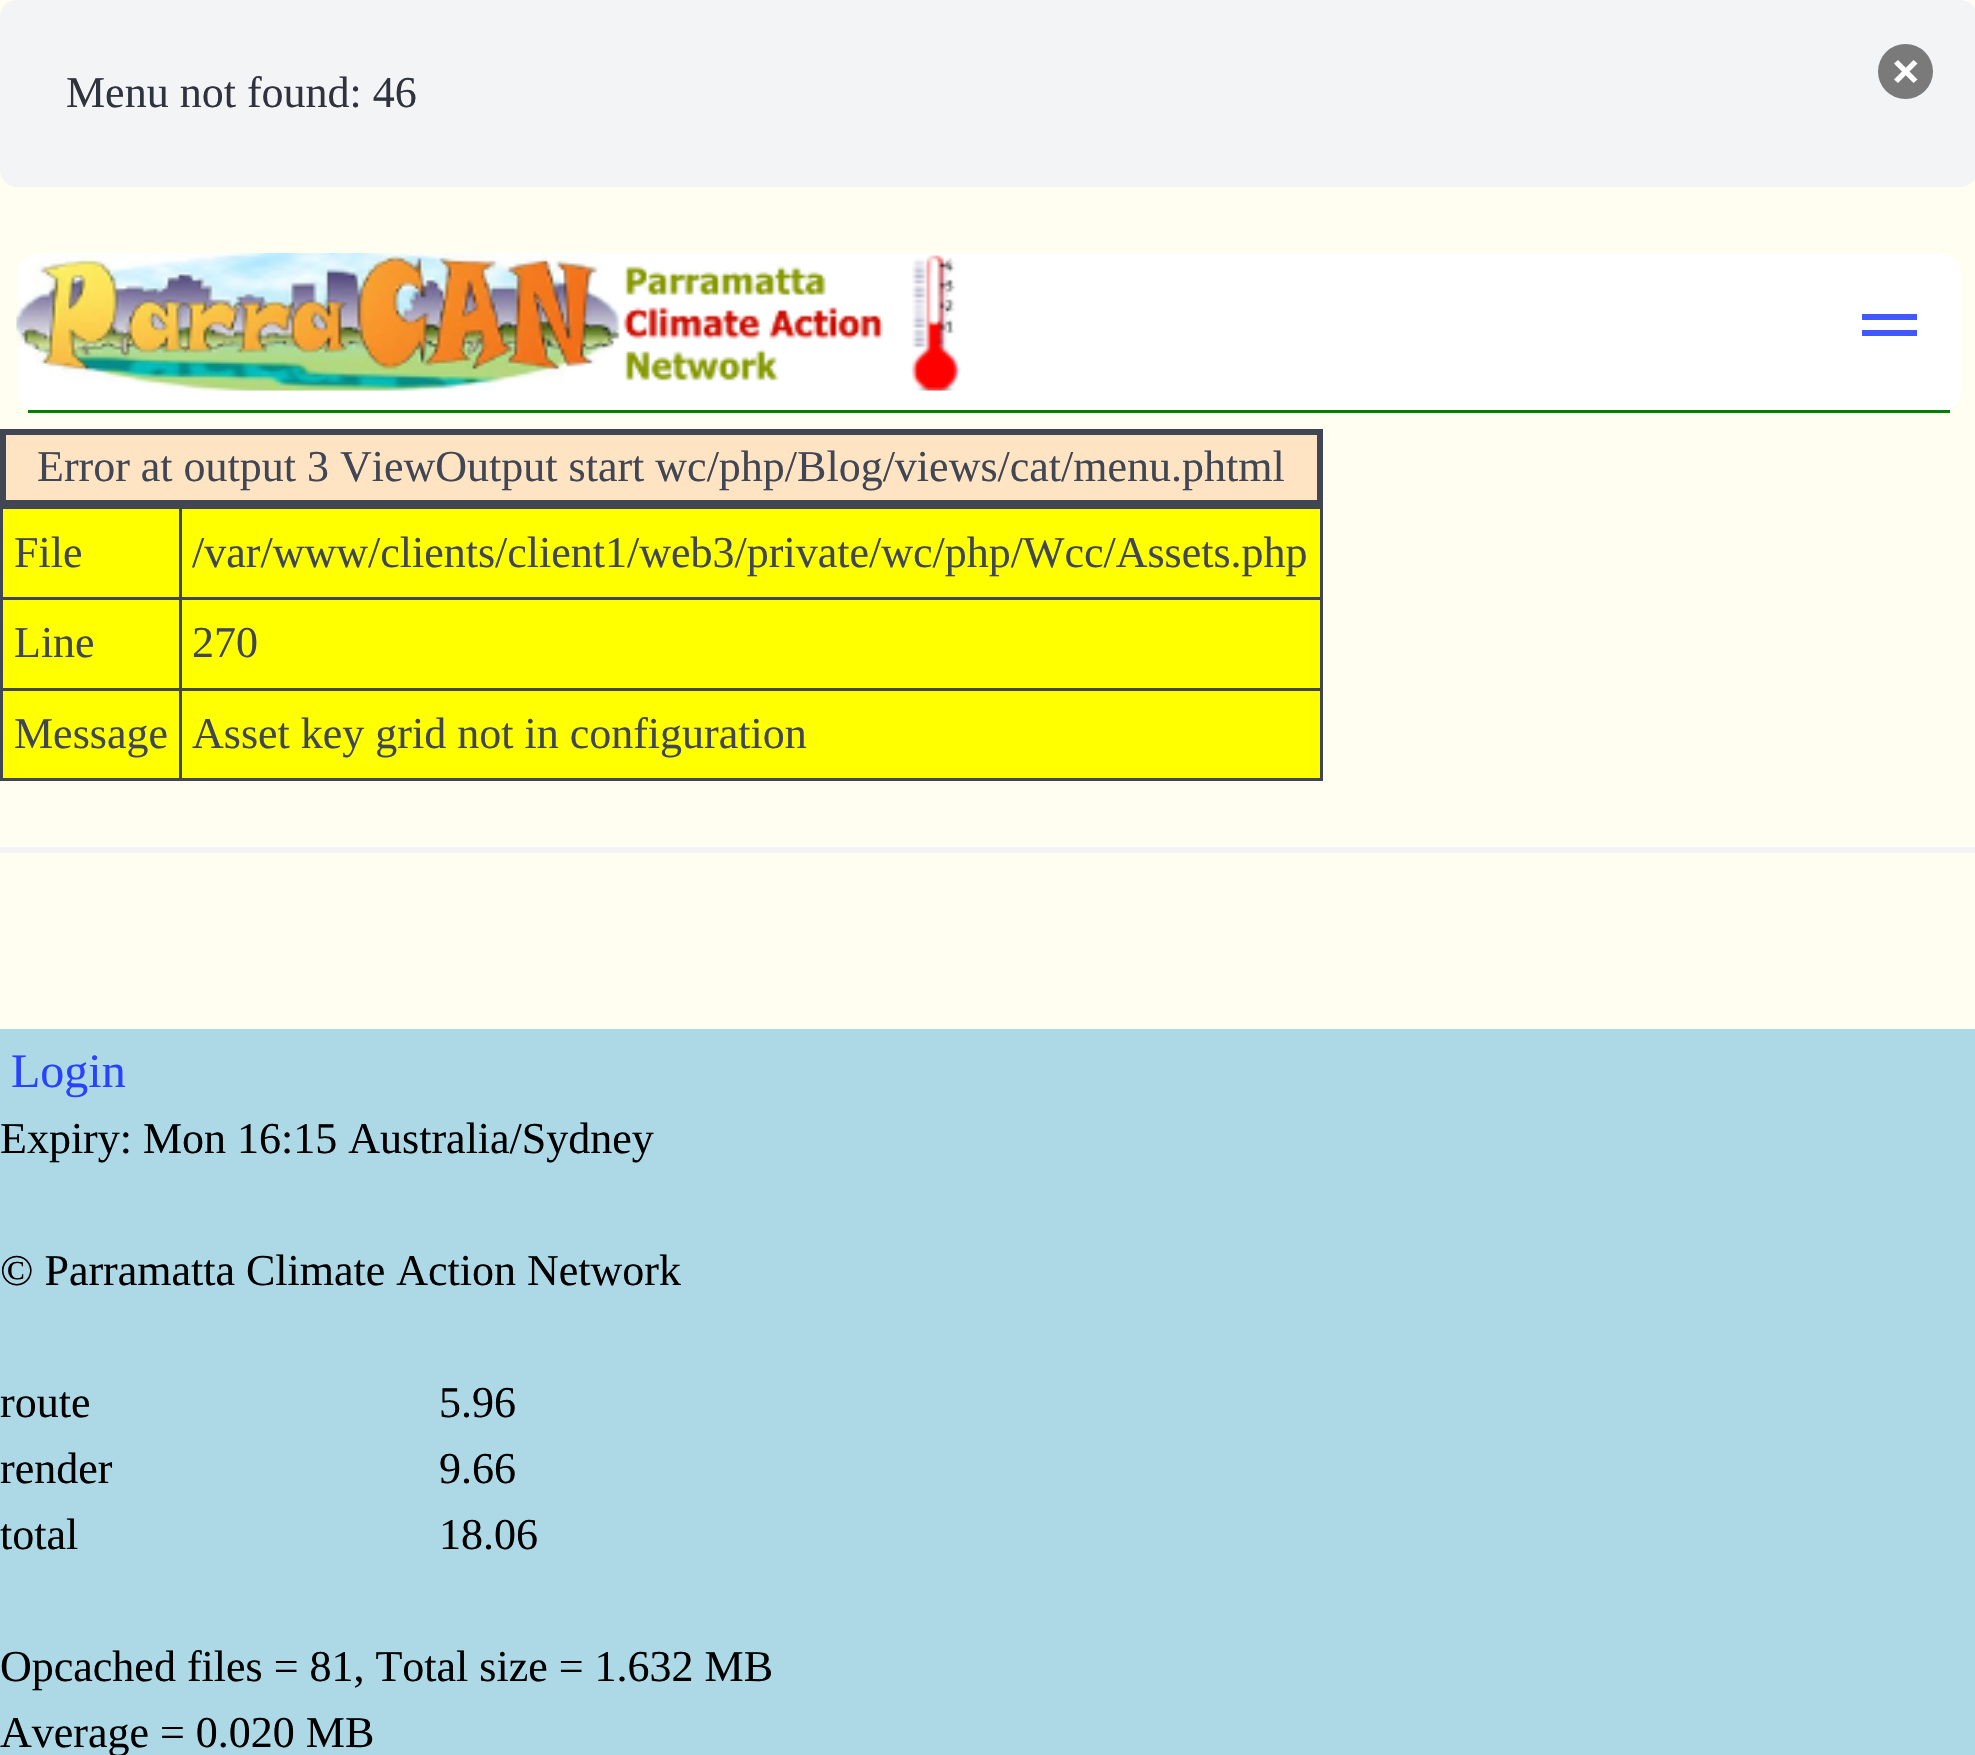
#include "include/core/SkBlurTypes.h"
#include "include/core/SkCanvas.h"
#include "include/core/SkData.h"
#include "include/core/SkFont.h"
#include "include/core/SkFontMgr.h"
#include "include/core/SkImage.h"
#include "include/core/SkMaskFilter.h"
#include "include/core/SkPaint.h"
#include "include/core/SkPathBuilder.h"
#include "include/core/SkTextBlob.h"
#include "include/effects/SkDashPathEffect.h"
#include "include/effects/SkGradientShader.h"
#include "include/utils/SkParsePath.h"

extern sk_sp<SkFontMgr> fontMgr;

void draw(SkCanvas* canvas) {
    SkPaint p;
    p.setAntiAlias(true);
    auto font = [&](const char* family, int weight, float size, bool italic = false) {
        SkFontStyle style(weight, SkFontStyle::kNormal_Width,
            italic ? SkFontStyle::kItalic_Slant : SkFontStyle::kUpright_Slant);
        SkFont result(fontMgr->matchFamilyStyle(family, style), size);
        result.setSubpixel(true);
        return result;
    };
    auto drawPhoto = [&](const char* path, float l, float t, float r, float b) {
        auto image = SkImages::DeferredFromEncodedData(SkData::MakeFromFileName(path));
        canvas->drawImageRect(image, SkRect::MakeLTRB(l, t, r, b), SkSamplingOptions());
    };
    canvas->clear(0xFFFFFEF0);
    p.setColor(0xFFF3F4F6);
    canvas->drawRoundRect(SkRect::MakeLTRB(0, 0, 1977, 187), 17, 17, p);
    auto font1 = font("Liberation Serif", 400, 44);
    p.setColor(0xFF2E333D);
    canvas->drawString("Menu not found: 46", 66, 107, font1, p);
    p.setColor(0xFF7A7A7B);
    canvas->drawCircle(1905.5f, 71.5f, 27.5f, p);
    p.setColor(0xFFFFFFFF);
    canvas->drawPath(SkPathBuilder().moveTo(1898, 60).lineTo(1917.5f, 79.5f).lineTo(1913.5f, 83).lineTo(1894, 63.5f).close().detach(), p);
    canvas->drawPath(SkPathBuilder().moveTo(1913.5f, 60).lineTo(1917.5f, 63.5f).lineTo(1898, 83).lineTo(1894, 79.5f).close().detach(), p);
    canvas->drawRoundRect(SkRect::MakeLTRB(17, 253, 1961, 413), 22, 22, p);
    p.setColor(0xFF008000);
    canvas->drawRect(SkRect::MakeLTRB(28, 410, 1950, 413), p);
    drawPhoto("media/1.png", 16, 253, 961, 391);
    {
        const struct { float l, t, r, b; SkColor color; } items[] = {
            {1862, 314, 1917, 320, 0xFF4258FF},
            {1862, 330, 1917, 336, 0xFF4258FF},
            {3, 509, 1320, 778, 0xFFFFFF00},
            {1320, 506, 1323, 781, 0xFF404654},
            {0, 778, 1323, 781, 0xFF404654},
            {0, 506, 3, 781, 0xFF404654},
        };
        for (auto [l, t, r, b, color] : items) {
            p.setColor(color);
            canvas->drawRect(SkRect::MakeLTRB(l, t, r, b), p);
        }
    }
    p.setColor(0xFFFFE4C4);
    canvas->drawRect(SkRect::MakeLTRB(3, 432, 1320, 503), p);
    p.setStyle(SkPaint::kStroke_Style);
    p.setStrokeWidth(6);
    p.setColor(0xFF404654);
    canvas->drawRect(SkRect::MakeLTRB(3, 432, 1320, 503), p);
    p.setStyle(SkPaint::kFill_Style);
    canvas->drawString("Error at output 3 ViewOutput start wc/php/Blog/views/cat/menu.phtml", 37, 481, font1, p);
    {
        const struct { float l, t, r, b; SkColor color; } items[] = {
            {179, 506, 1323, 509, 0xFF404654},
            {179, 597, 1323, 600, 0xFF404654},
            {179, 688, 1323, 691, 0xFF404654},
            {179, 688, 182, 781, 0xFF404654},
            {0, 688, 182, 691, 0xFF404654},
            {179, 597, 182, 690, 0xFF404654},
            {0, 597, 182, 600, 0xFF404654},
            {179, 506, 182, 600, 0xFF404654},
            {0, 506, 182, 509, 0xFF404654},
        };
        for (auto [l, t, r, b, color] : items) {
            p.setColor(color);
            canvas->drawRect(SkRect::MakeLTRB(l, t, r, b), p);
        }
    }
    {
        const struct { const char* s; float x, y; } items[] = {
            {"File", 14, 567},
            {"/var/www/clients/client1/web3/private/wc/php/Wcc/Assets.php", 192, 567},
            {"Line", 14, 657},
            {"270", 192, 657},
            {"Message", 14, 748},
            {"Asset key grid not in configuration", 192, 748},
        };
        for (auto [s, x, y] : items) {
            canvas->drawString(s, x, y, font1, p);
        }
    }
    p.setColor(0xFFF3F4F6);
    canvas->drawRect(SkRect::MakeLTRB(0, 847, 1975, 853), p);
    p.setColor(0xFFADD8E6);
    canvas->drawRect(SkRect::MakeLTRB(0, 1029, 1975, 1755), p);
    auto font2 = font("Liberation Serif", 400, 48);
    p.setColor(0xFF2942FF);
    canvas->drawString("Login", 11, 1087, font2, p);
    p.setColor(0xFF000000);
    {
        const struct { const char* s; float x, y; } items[] = {
            {"Expiry: Mon 16:15 Australia/Sydney", 0, 1153},
            {"© Parramatta Climate Action Network", 0, 1285},
            {"route", 0, 1417},
            {"5.96", 439, 1417},
            {"render", 0, 1483},
            {"9.66", 439, 1483},
            {"total", 0, 1549},
            {"18.06", 439, 1549},
            {"Opcached files = 81, Total size = 1.632 MB", 0, 1681},
            {"Average = 0.020 MB", 0, 1747},
        };
        for (auto [s, x, y] : items) {
            canvas->drawString(s, x, y, font1, p);
        }
    }
}
